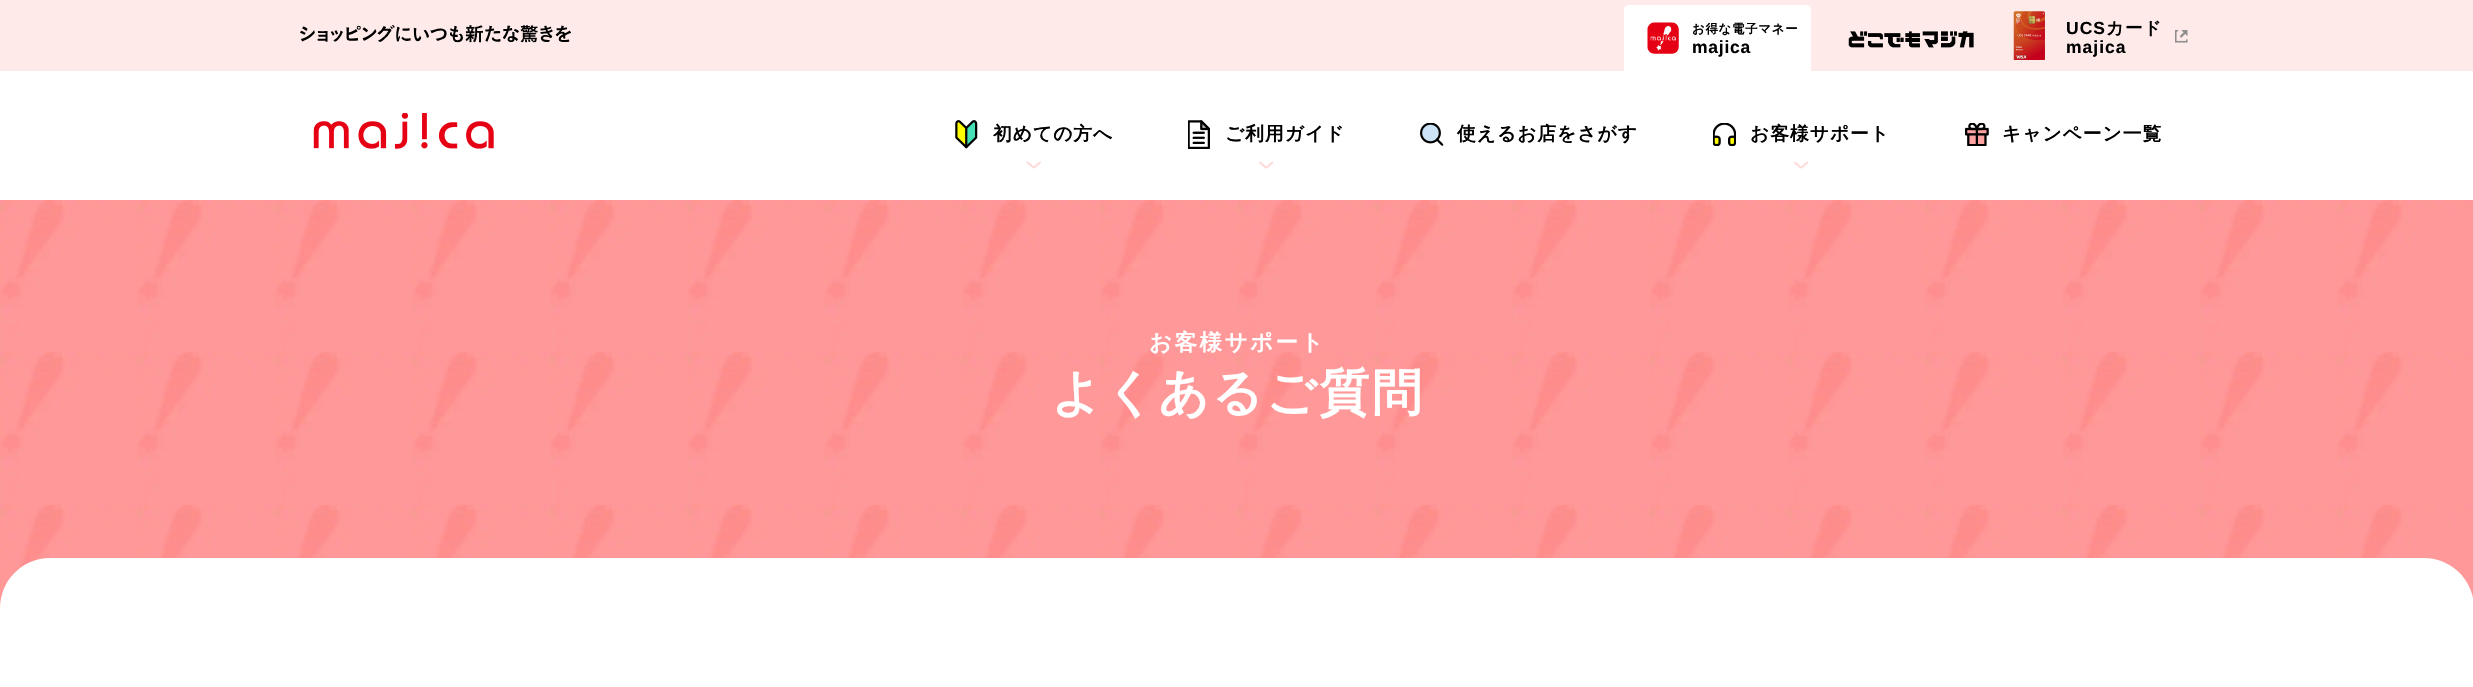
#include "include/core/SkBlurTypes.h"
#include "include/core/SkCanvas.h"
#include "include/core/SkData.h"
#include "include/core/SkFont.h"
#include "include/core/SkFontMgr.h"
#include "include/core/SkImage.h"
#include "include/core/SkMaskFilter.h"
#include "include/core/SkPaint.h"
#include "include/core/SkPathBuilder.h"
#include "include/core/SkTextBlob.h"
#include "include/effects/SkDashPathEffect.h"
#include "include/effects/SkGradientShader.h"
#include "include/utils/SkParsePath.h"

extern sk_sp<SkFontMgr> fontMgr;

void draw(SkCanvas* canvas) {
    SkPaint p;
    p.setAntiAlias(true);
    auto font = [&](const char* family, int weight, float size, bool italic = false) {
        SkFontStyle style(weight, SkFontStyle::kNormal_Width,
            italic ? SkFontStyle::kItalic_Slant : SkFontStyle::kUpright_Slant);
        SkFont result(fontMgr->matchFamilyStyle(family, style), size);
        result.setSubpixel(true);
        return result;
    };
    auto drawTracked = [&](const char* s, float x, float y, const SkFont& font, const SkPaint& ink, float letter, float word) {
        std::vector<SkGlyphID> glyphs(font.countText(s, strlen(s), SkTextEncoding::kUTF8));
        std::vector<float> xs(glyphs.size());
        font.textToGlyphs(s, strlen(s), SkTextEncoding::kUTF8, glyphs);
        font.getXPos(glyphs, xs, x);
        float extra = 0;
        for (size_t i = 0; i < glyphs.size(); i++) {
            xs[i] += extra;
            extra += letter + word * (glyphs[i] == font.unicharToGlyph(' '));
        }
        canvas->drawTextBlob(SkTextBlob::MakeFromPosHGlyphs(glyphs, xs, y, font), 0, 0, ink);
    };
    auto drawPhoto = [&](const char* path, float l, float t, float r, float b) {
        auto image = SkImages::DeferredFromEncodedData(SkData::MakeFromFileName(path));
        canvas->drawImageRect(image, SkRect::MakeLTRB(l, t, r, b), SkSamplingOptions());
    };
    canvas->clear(0xFFFFFFFF);
    p.setColor(0xFFFFEAEA);
    canvas->drawRect(SkRect::MakeLTRB(0, 0, 2473, 71), p);
    drawPhoto("media/1.png", 300, 25, 571, 43);
    p.setColor(0xFFFFFFFF);
    canvas->drawPath(SkPathBuilder().moveTo(1629, 5).lineTo(1806, 5).cubicTo(1809, 5, 1811, 7, 1811, 10).lineTo(1811, 71).lineTo(1624, 71).lineTo(1624, 10).cubicTo(1624, 7, 1626, 5, 1629, 5).close().detach(), p);
    drawPhoto("media/2.png", 1647, 22, 1679, 54);
    auto font1 = font("WenQuanYi Zen Hei", 700, 12.4f);
    p.setColor(0xFF000000);
    drawTracked("お得な電子マネー", 1692, 33, font1, p, 0.75f, 0);
    auto font2 = font("Liberation Sans", 700, 17.5f);
    drawTracked("majica", 1692, 53, font2, p, 0.75f, 0);
    drawPhoto("media/3.png", 1848, 31, 1974, 48);
    drawPhoto("media/4.png", 2013, 11, 2045, 60);
    drawTracked("UCS", 2066, 34, font2, p, 1, 0);
    auto font3 = font("WenQuanYi Zen Hei", 700, 17.5f);
    drawTracked("カード", 2106, 34, font3, p, 1, 0);
    drawPhoto("media/5.png", 2175, 30, 2188, 43);
    drawTracked("majica", 2066, 53, font2, p, 1, 0);
    drawPhoto("media/6.png", 313, 113, 494, 149);
    drawPhoto("media/7.png", 955, 120, 978, 149);
    auto font4 = font("WenQuanYi Zen Hei", 700, 18.75f);
    drawTracked("初めての方へ", 993, 140, font4, p, 1, 0);
    drawPhoto("media/8.png", 1026, 161, 1041, 169);
    drawPhoto("media/9.png", 1188, 120, 1210, 149);
    drawTracked("ご利用ガイド", 1225, 140, font4, p, 1, 0);
    drawPhoto("media/10.png", 1259, 161, 1274, 169);
    drawPhoto("media/11.png", 1420, 123, 1444, 146);
    drawTracked("使えるお店をさがす", 1457, 140, font4, p, 1, 0);
    drawPhoto("media/12.png", 1713, 123, 1736, 146);
    drawTracked("お客様サポート", 1750, 140, font4, p, 1, 0);
    drawPhoto("media/10.png", 1794, 161, 1809, 169);
    drawPhoto("media/13.png", 1965, 123, 1989, 146);
    drawTracked("キャンペーン一覧", 2002, 140, font4, p, 1, 0);
    drawPhoto("media/14.png", 0, 200, 2473, 608);
    auto font5 = font("WenQuanYi Zen Hei", 700, 22.5f);
    p.setColor(0xFFFFFFFF);
    drawTracked("お客様サポート", 1149, 350, font5, p, 2.5f, 0);
    auto font6 = font("WenQuanYi Zen Hei", 700, 50);
    drawTracked("よくあるご質問", 1051, 410, font6, p, 2.5f, 0);
    canvas->drawPath(SkPathBuilder().moveTo(50, 558).lineTo(2424, 558).cubicTo(2451.5f, 558, 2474, 580.5f, 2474, 608).lineTo(0, 608).cubicTo(0, 580.5f, 22.5f, 558, 50, 558).close().detach(), p);
}
